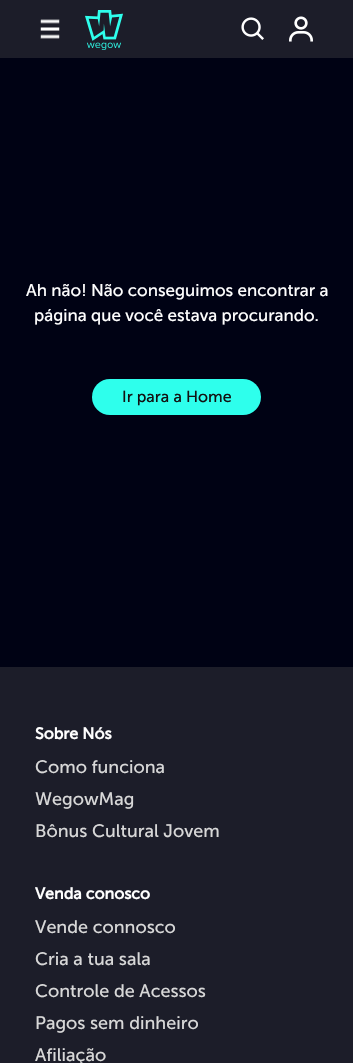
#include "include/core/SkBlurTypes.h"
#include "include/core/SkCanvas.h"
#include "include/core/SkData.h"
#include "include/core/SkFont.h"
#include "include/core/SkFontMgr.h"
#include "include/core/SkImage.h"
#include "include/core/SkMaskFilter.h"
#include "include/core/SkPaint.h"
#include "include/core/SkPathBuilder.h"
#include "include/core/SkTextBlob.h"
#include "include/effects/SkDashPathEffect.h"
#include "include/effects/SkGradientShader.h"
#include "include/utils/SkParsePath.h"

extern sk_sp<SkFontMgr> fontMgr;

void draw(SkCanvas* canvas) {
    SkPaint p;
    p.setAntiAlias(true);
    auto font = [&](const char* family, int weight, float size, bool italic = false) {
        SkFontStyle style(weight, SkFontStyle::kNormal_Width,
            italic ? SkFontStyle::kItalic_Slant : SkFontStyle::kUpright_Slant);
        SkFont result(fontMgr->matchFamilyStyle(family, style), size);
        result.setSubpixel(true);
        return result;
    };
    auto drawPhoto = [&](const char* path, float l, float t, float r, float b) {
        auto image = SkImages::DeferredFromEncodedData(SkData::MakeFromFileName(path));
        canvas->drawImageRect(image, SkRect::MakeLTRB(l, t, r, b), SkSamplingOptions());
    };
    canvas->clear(0xFF000214);
    p.setColor(0xFF1C1D29);
    canvas->drawRect(SkRect::MakeLTRB(0, 0, 353, 58), p);
    drawPhoto("media/1.png", 40, 19, 60, 39);
    drawPhoto("media/2.png", 85, 10, 123, 50);
    drawPhoto("media/3.png", 241, 17, 264, 40);
    drawPhoto("media/4.png", 289, 16, 313, 42);
    auto font1 = font("Museo Sans", 400, 17);
    p.setColor(0xFFFFFFFF);
    canvas->drawString("Ah não! Não conseguimos encontrar a", 26, 296, font1, p);
    canvas->drawString("página que você estava procurando.", 34, 321, font1, p);
    p.setColor(0xFF2EFFEC);
    canvas->drawRoundRect(SkRect::MakeLTRB(92, 379, 261, 415), 18, 18, p);
    auto font2 = font("Museo Sans", 400, 16);
    p.setColor(0xFF121212);
    canvas->drawString("Ir para a Home", 122, 402, font2, p);
    p.setColor(0xFF1C1D29);
    canvas->drawRect(SkRect::MakeLTRB(0, 667, 353, 1063), p);
    auto font3 = font("Museo Sans", 700, 16);
    p.setColor(0xFFFFFFFF);
    canvas->drawString("Sobre Nós", 35, 739, font3, p);
    auto font4 = font("Museo Sans", 400, 18);
    p.setColor(0xFFD8D8D8);
    {
        const struct { const char* s; float x, y; } items[] = {
            {"Como funciona", 35, 773},
            {"WegowMag", 35, 805},
            {"Bônus Cultural Jovem", 35, 837},
        };
        for (auto [s, x, y] : items) {
            canvas->drawString(s, x, y, font4, p);
        }
    }
    p.setColor(0xFFFFFFFF);
    canvas->drawString("Venda conosco", 35, 899, font3, p);
    p.setColor(0xFFD8D8D8);
    {
        const struct { const char* s; float x, y; } items[] = {
            {"Vende connosco", 35, 933},
            {"Cria a tua sala", 35, 965},
            {"Controle de Acessos", 35, 997},
            {"Pagos sem dinheiro", 35, 1029},
            {"Afiliação", 35, 1061},
        };
        for (auto [s, x, y] : items) {
            canvas->drawString(s, x, y, font4, p);
        }
    }
}
